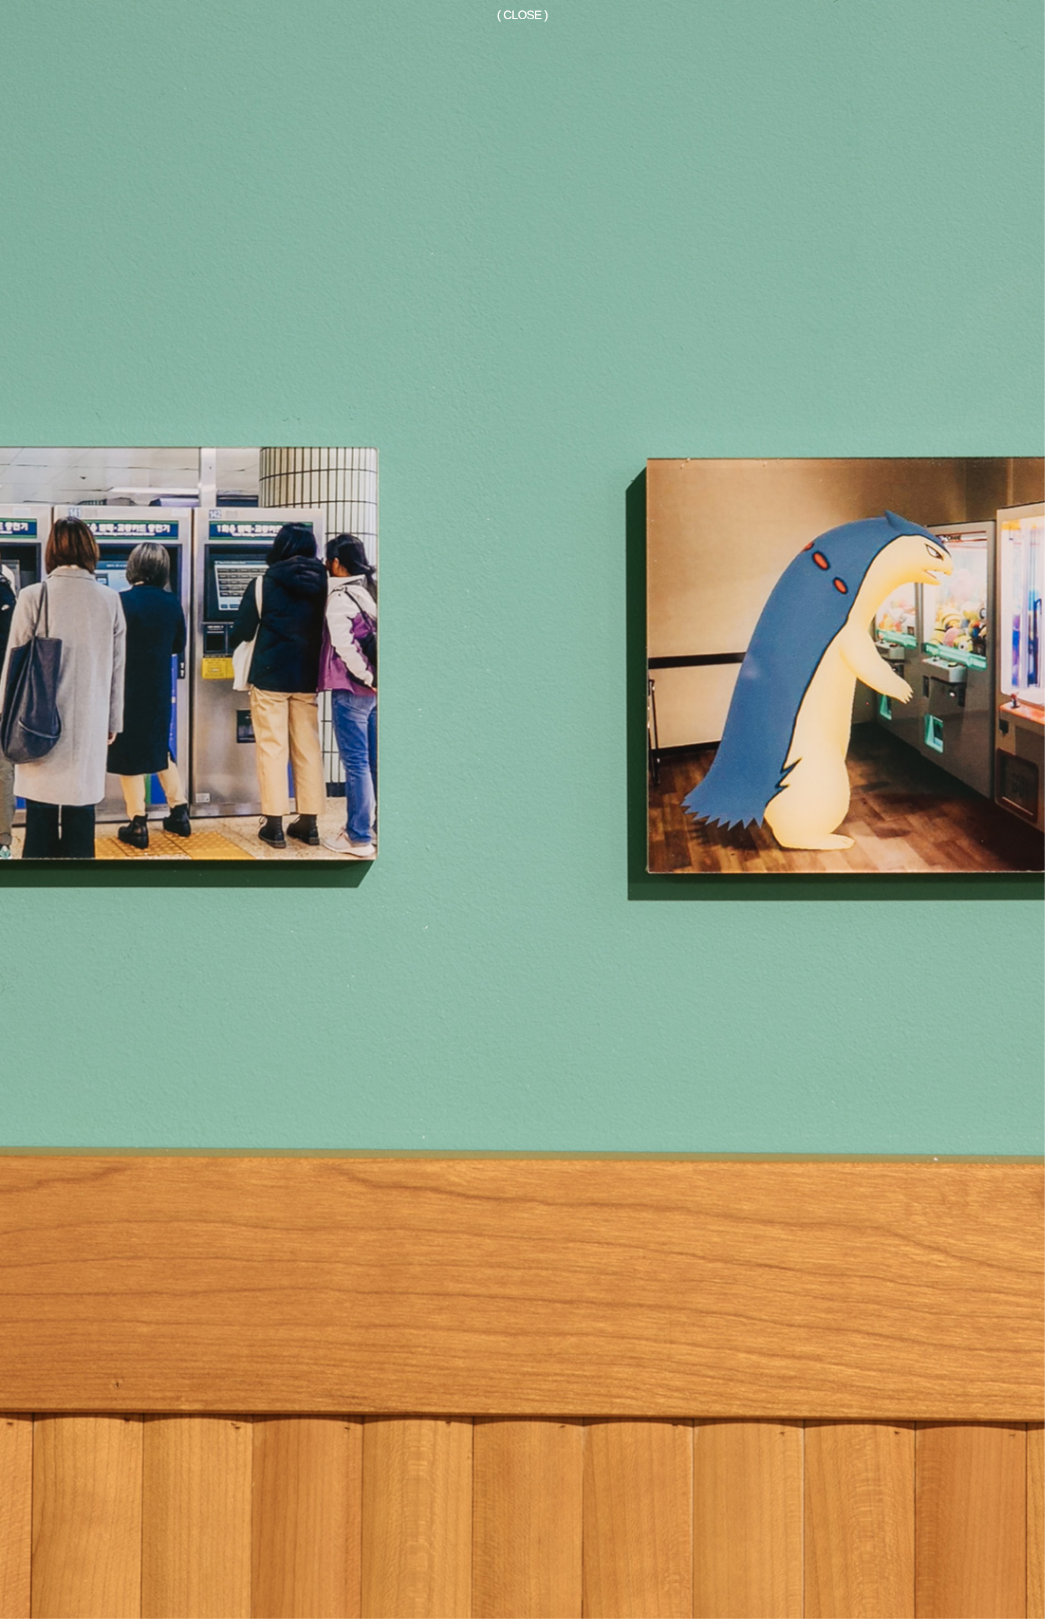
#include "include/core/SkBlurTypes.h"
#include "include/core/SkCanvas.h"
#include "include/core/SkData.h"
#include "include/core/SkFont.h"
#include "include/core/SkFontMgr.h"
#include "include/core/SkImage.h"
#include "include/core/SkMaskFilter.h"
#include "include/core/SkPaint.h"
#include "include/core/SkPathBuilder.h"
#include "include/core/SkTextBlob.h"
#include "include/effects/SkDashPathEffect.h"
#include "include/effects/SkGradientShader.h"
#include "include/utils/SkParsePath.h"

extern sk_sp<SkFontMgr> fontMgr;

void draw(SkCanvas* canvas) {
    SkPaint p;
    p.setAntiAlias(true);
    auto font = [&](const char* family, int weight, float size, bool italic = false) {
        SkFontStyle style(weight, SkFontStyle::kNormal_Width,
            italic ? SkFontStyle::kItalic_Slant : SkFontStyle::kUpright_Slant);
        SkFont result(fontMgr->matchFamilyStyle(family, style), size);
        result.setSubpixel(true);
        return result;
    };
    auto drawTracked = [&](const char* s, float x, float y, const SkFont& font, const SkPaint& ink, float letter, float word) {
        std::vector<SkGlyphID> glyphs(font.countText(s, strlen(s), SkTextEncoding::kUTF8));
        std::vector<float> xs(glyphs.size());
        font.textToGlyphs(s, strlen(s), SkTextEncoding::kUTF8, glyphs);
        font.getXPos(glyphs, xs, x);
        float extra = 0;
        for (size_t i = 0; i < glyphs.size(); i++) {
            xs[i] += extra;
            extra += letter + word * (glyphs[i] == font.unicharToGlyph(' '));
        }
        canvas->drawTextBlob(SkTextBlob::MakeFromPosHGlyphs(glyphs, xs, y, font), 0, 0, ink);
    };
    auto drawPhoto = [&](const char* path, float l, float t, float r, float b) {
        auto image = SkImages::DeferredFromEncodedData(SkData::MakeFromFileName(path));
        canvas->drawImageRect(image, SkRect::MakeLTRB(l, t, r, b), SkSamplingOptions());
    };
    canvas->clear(0xFFFFFFFF);
    drawPhoto("media/1.png", 0, 0, 1045, 1619);
    auto font1 = font("Liberation Sans", 400, 12);
    p.setColor(0xFFFFFFFF);
    drawTracked("( CLOSE )", 497, 19, font1, p, -0.5f, 0);
}
